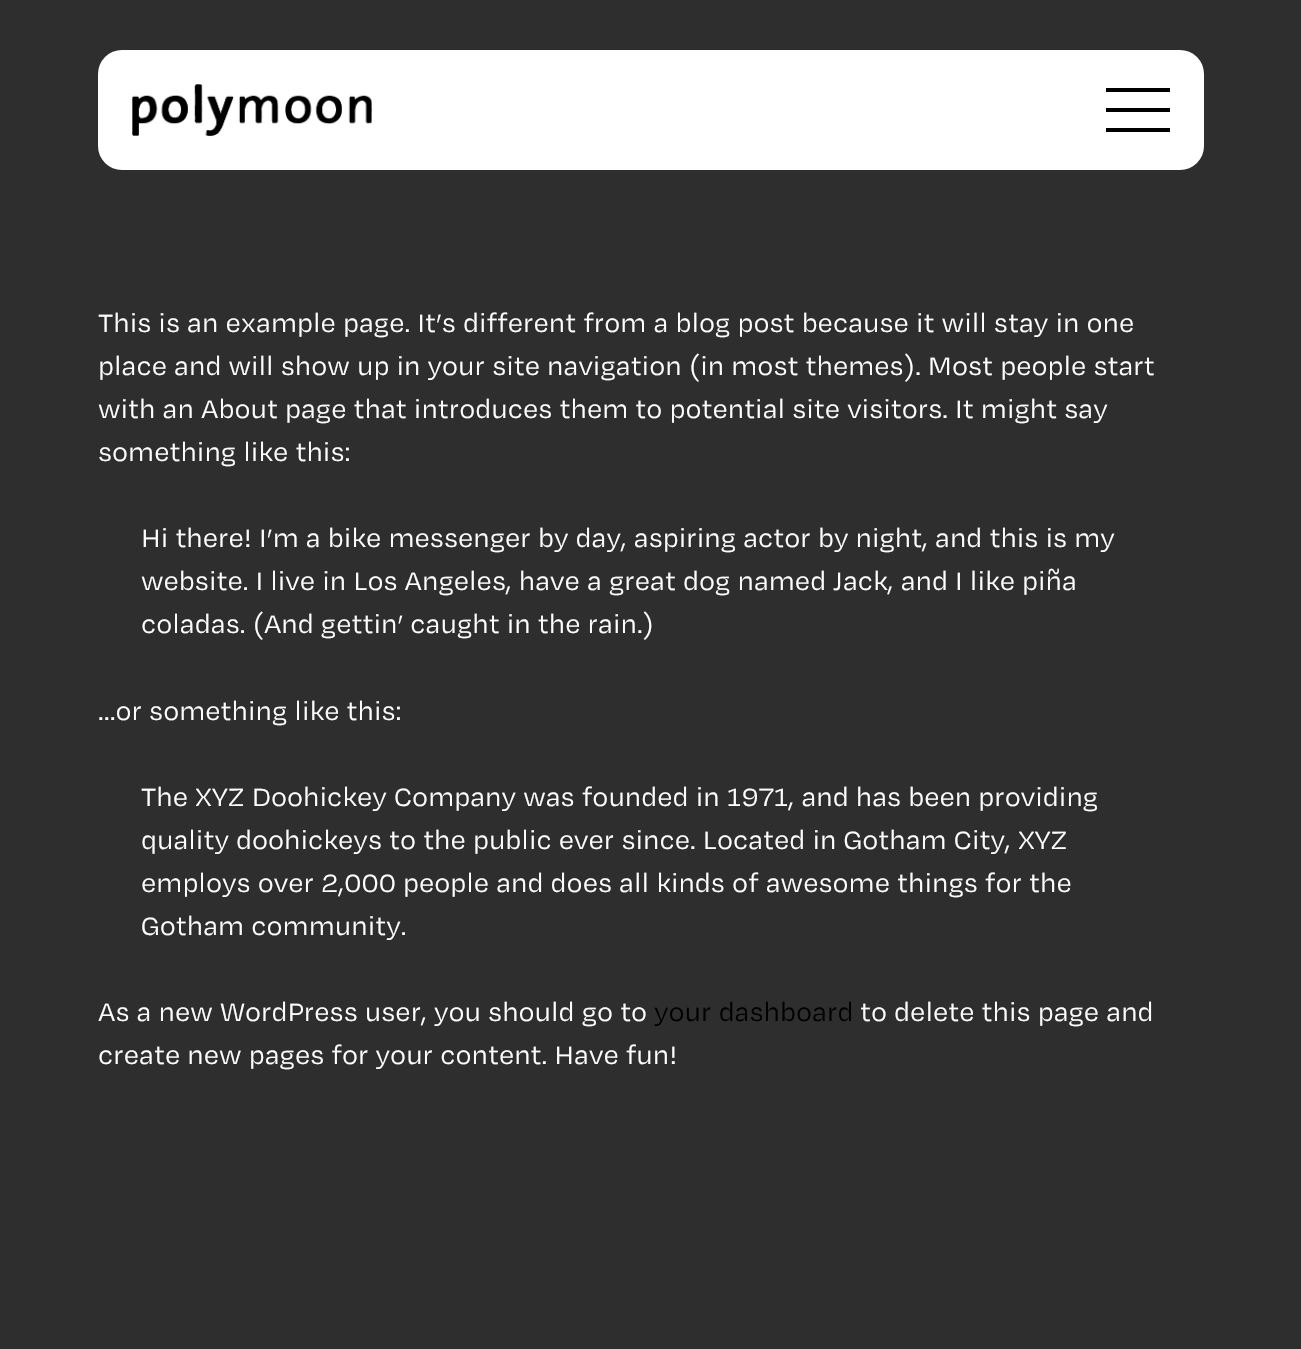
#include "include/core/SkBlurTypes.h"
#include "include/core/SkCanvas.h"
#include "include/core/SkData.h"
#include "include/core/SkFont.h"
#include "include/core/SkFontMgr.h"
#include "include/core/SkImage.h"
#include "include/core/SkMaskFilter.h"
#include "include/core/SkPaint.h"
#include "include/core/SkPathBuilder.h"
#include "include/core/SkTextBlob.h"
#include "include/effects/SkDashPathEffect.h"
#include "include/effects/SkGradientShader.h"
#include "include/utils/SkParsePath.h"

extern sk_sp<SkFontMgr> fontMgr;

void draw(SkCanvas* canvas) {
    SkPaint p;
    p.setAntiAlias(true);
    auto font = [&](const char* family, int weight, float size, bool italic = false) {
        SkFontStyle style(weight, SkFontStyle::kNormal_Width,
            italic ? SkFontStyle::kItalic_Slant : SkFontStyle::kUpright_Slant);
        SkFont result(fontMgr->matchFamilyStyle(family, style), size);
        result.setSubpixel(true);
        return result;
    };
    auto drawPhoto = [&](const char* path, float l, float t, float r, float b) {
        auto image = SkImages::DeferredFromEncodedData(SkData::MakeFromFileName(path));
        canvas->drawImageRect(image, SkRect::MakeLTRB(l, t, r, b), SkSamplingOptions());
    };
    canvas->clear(0xFF2E2E2E);
    p.setColor(0xFFFFFFFF);
    canvas->drawRoundRect(SkRect::MakeLTRB(98, 50, 1204, 170), 24, 24, p);
    drawPhoto("media/1.png", 132, 84, 372, 137);
    {
        const struct { float l, t, r, b; SkColor color; } items[] = {
            {1106, 108, 1170, 112, 0xFF000000},
            {1106, 88, 1170, 92, 0xFF000000},
            {1106, 128, 1170, 132, 0xFF000000},
        };
        for (auto [l, t, r, b, color] : items) {
            p.setColor(color);
            canvas->drawRect(SkRect::MakeLTRB(l, t, r, b), p);
        }
    }
    auto font1 = font("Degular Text", 400, 28.7f);
    p.setColor(0xFFFFFFFF);
    {
        const struct { const char* s; float x, y; } items[] = {
            {"This is an example page. It’s different from a blog post because it will stay in one", 98, 332},
            {"place and will show up in your site navigation (in most themes). Most people start", 98, 375},
            {"with an About page that introduces them to potential site visitors. It might say", 98, 418},
            {"something like this:", 98, 461},
            {"Hi there! I’m a bike messenger by day, aspiring actor by night, and this is my", 141, 547},
            {"website. I live in Los Angeles, have a great dog named Jack, and I like piña", 141, 590},
            {"coladas. (And gettin’ caught in the rain.)", 141, 633},
            {"…or something like this:", 98, 720},
            {"The XYZ Doohickey Company was founded in 1971, and has been providing", 141, 806},
            {"quality doohickeys to the public ever since. Located in Gotham City, XYZ", 141, 849},
            {"employs over 2,000 people and does all kinds of awesome things for the", 141, 892},
            {"Gotham community.", 141, 935},
            {"As a new WordPress user, you should go to", 98, 1021},
        };
        for (auto [s, x, y] : items) {
            canvas->drawString(s, x, y, font1, p);
        }
    }
    p.setColor(0xFF000000);
    canvas->drawString("your dashboard", 654, 1021, font1, p);
    p.setColor(0xFFFFFFFF);
    canvas->drawString("to delete this page and", 860, 1021, font1, p);
    canvas->drawString("create new pages for your content. Have fun!", 98, 1064, font1, p);
}
